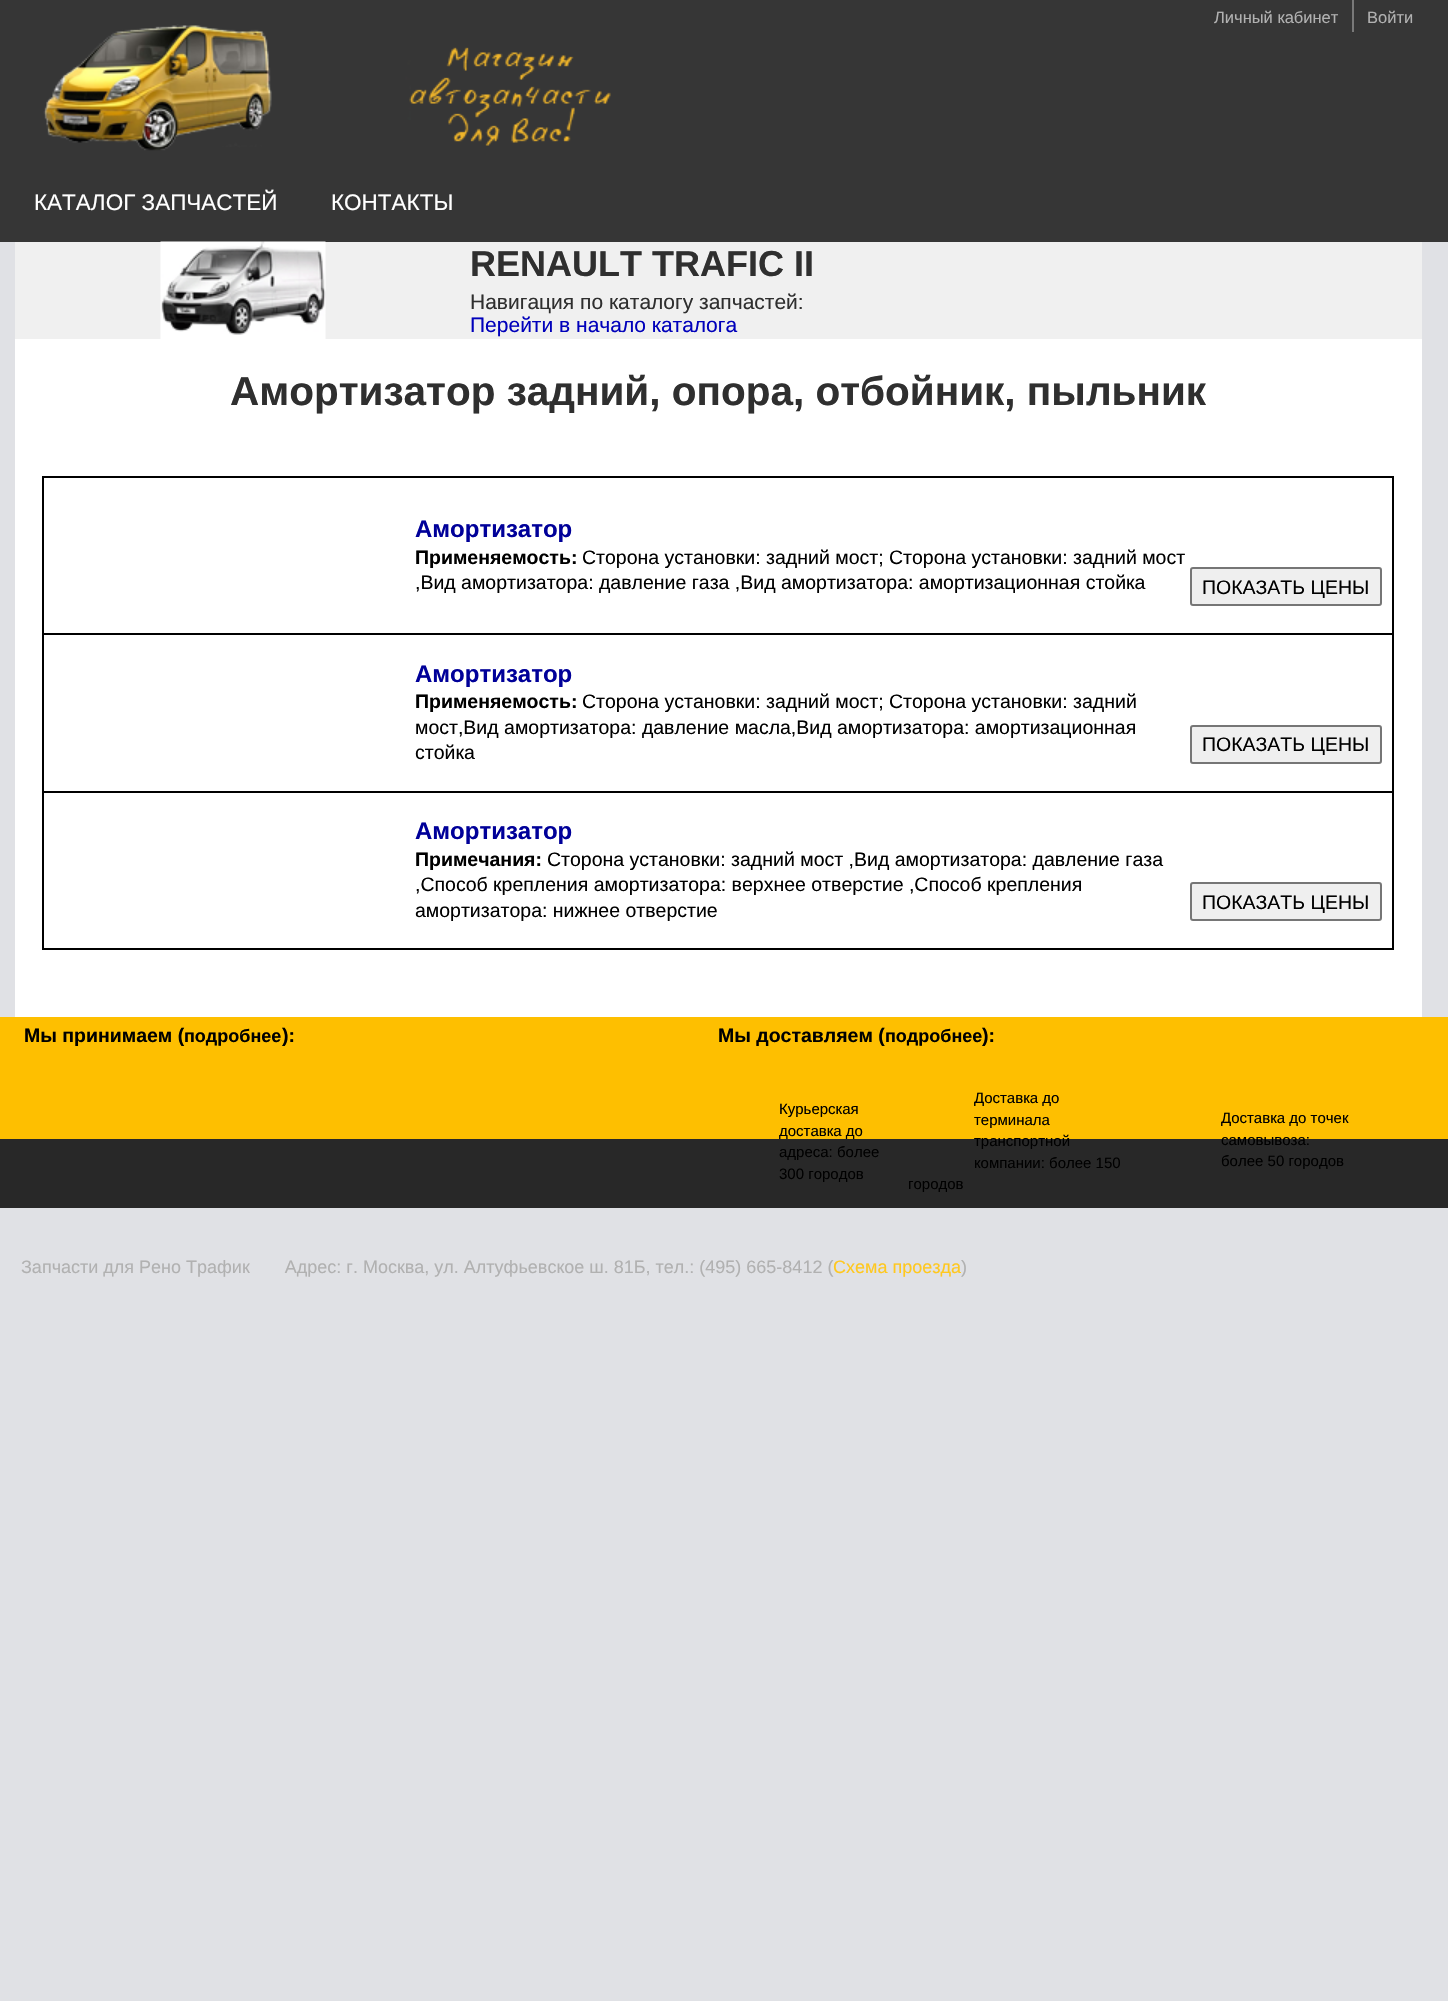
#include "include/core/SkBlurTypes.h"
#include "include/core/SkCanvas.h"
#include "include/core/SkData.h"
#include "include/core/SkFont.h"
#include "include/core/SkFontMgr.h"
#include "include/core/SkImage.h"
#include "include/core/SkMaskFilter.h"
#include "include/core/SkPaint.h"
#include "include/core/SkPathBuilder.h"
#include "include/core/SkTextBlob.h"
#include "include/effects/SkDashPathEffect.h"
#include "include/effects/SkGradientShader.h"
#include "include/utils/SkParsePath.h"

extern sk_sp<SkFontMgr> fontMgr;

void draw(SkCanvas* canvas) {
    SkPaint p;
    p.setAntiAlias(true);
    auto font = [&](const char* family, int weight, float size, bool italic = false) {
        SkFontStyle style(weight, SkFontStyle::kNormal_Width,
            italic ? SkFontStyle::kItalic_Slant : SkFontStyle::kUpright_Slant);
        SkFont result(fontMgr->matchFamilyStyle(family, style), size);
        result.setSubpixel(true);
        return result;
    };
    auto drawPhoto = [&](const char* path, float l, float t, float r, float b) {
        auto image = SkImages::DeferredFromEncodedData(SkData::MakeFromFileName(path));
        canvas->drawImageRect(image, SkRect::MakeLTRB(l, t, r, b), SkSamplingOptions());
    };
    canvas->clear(0xFFE0E1E5);
    p.setColor(0xFF363636);
    canvas->drawRect(SkRect::MakeLTRB(0, 0, 1448, 242), p);
    p.setColor(0xFF797979);
    canvas->drawRect(SkRect::MakeLTRB(1352, 0, 1354, 32), p);
    auto font1 = font("Liberation Sans", 400, 16.5f);
    p.setColor(0xFFB1B1B1);
    canvas->drawString("Личный кабинет", 1214, 23, font1, p);
    canvas->drawString("Войти", 1367, 23, font1, p);
    drawPhoto("media/1.png", 43, 24, 611, 151);
    auto font2 = font("Liberation Sans", 400, 22.5f);
    p.setColor(0xFFFFFFFF);
    canvas->drawString("КАТАЛОГ ЗАПЧАСТЕЙ", 34, 210, font2, p);
    canvas->drawString("КОНТАКТЫ", 331, 210, font2, p);
    canvas->drawRect(SkRect::MakeLTRB(15, 339, 1422, 1017), p);
    p.setColor(0xFFF0F0F0);
    canvas->drawRect(SkRect::MakeLTRB(15, 242, 1422, 339), p);
    drawPhoto("media/2.png", 160, 241, 326, 339);
    auto font3 = font("Liberation Sans", 700, 36);
    p.setColor(0xFF2F2F2F);
    canvas->drawString("RENAULT TRAFIC II", 470, 276, font3, p);
    auto font4 = font("Liberation Sans", 400, 21);
    canvas->drawString("Навигация по каталогу запчастей:", 470, 309, font4, p);
    p.setColor(0xFF0000BB);
    canvas->drawString("Перейти в начало каталога", 470, 332, font4, p);
    auto font5 = font("Liberation Sans", 700, 40.5f);
    p.setColor(0xFF2F2F2F);
    canvas->drawString("Амортизатор задний, опора, отбойник, пыльник", 230, 405, font5, p);
    {
        const struct { float l, t, r, b; SkColor color; } items[] = {
            {42, 476, 1394, 478, 0xFF000000},
            {42, 633, 407, 635, 0xFF000000},
            {42, 476, 44, 635, 0xFF000000},
            {1392, 476, 1394, 792, 0xFF000000},
            {407, 633, 1394, 635, 0xFF000000},
        };
        for (auto [l, t, r, b, color] : items) {
            p.setColor(color);
            canvas->drawRect(SkRect::MakeLTRB(l, t, r, b), p);
        }
    }
    auto font6 = font("Liberation Sans", 700, 24);
    p.setColor(0xFF000099);
    canvas->drawString("Амортизатор", 415, 537, font6, p);
    auto font7 = font("Liberation Sans", 700, 19.5f);
    p.setColor(0xFF000000);
    canvas->drawString("Применяемость:", 415, 564, font7, p);
    auto font8 = font("Liberation Sans", 400, 19.5f);
    canvas->drawString("Сторона установки: задний мост; Сторона установки: задний мост", 582, 564, font8, p);
    canvas->drawString(",Вид амортизатора: давление газа ,Вид амортизатора: амортизационная стойка", 415, 589, font8, p);
    p.setColor(0xFFEFEFEF);
    canvas->drawRoundRect(SkRect::MakeLTRB(1191, 568, 1381, 605), 2, 2, p);
    p.setStyle(SkPaint::kStroke_Style);
    p.setStrokeWidth(2);
    p.setColor(0xFF767676);
    canvas->drawRoundRect(SkRect::MakeLTRB(1191, 568, 1381, 605), 2, 2, p);
    p.setStyle(SkPaint::kFill_Style);
    p.setColor(0xFF000000);
    canvas->drawString("ПОКАЗАТЬ ЦЕНЫ", 1202, 594, font8, p);
    canvas->drawRect(SkRect::MakeLTRB(42, 791, 1394, 793), p);
    canvas->drawRect(SkRect::MakeLTRB(42, 635, 44, 792), p);
    p.setColor(0xFF000099);
    canvas->drawString("Амортизатор", 415, 682, font6, p);
    p.setColor(0xFF000000);
    canvas->drawString("Применяемость:", 415, 708, font7, p);
    {
        const struct { const char* s; float x, y; } items[] = {
            {"Сторона установки: задний мост; Сторона установки: задний", 582, 708},
            {"мост,Вид амортизатора: давление масла,Вид амортизатора: амортизационная", 415, 734},
            {"стойка", 415, 759},
        };
        for (auto [s, x, y] : items) {
            canvas->drawString(s, x, y, font8, p);
        }
    }
    p.setColor(0xFFEFEFEF);
    canvas->drawRoundRect(SkRect::MakeLTRB(1191, 726, 1381, 763), 2, 2, p);
    p.setStyle(SkPaint::kStroke_Style);
    p.setColor(0xFF767676);
    canvas->drawRoundRect(SkRect::MakeLTRB(1191, 726, 1381, 763), 2, 2, p);
    p.setStyle(SkPaint::kFill_Style);
    p.setColor(0xFF000000);
    canvas->drawString("ПОКАЗАТЬ ЦЕНЫ", 1202, 751, font8, p);
    {
        const struct { float l, t, r, b; SkColor color; } items[] = {
            {42, 948, 407, 950, 0xFF000000},
            {42, 792, 44, 950, 0xFF000000},
            {1392, 792, 1394, 950, 0xFF000000},
            {407, 948, 1394, 950, 0xFF000000},
        };
        for (auto [l, t, r, b, color] : items) {
            p.setColor(color);
            canvas->drawRect(SkRect::MakeLTRB(l, t, r, b), p);
        }
    }
    p.setColor(0xFF000099);
    canvas->drawString("Амортизатор", 415, 839, font6, p);
    p.setColor(0xFF000000);
    canvas->drawString("Примечания:", 415, 866, font7, p);
    {
        const struct { const char* s; float x, y; } items[] = {
            {"Сторона установки: задний мост ,Вид амортизатора: давление газа", 547, 866},
            {",Способ крепления амортизатора: верхнее отверстие ,Способ крепления", 415, 891},
            {"амортизатора: нижнее отверстие", 415, 917},
        };
        for (auto [s, x, y] : items) {
            canvas->drawString(s, x, y, font8, p);
        }
    }
    p.setColor(0xFFEFEFEF);
    canvas->drawRoundRect(SkRect::MakeLTRB(1191, 883, 1381, 920), 2, 2, p);
    p.setStyle(SkPaint::kStroke_Style);
    p.setColor(0xFF767676);
    canvas->drawRoundRect(SkRect::MakeLTRB(1191, 883, 1381, 920), 2, 2, p);
    p.setStyle(SkPaint::kFill_Style);
    p.setColor(0xFF000000);
    canvas->drawString("ПОКАЗАТЬ ЦЕНЫ", 1202, 909, font8, p);
    p.setColor(0xFFFEBF00);
    canvas->drawRect(SkRect::MakeLTRB(0, 1017, 1448, 1139), p);
    p.setColor(0xFF000000);
    canvas->drawString("Мы принимаем (", 24, 1042, font7, p);
    auto font9 = font("Liberation Sans", 700, 18);
    canvas->drawString("подробнее", 184, 1042, font9, p);
    canvas->drawString("):", 282, 1042, font7, p);
    canvas->drawString("Мы доставляем (", 718, 1042, font7, p);
    canvas->drawString("подробнее", 885, 1042, font9, p);
    canvas->drawString("):", 982, 1042, font7, p);
    auto font10 = font("Liberation Sans", 400, 15);
    canvas->drawString("Курьерская", 779, 1114, font10, p);
    canvas->drawString("доставка до", 779, 1136, font10, p);
    p.setColor(0xFF282828);
    canvas->drawRect(SkRect::MakeLTRB(0, 1139, 1448, 1208), p);
    p.setColor(0xFF000000);
    {
        const struct { const char* s; float x, y; } items[] = {
            {"адреса: более", 779, 1157},
            {"300 городов", 779, 1179},
            {"Доставка до", 974, 1103},
            {"терминала", 974, 1125},
            {"транспортной", 974, 1146},
            {"компании: более 150", 974, 1168},
            {"городов", 908, 1189},
            {"Доставка до точек", 1221, 1123},
            {"самовывоза:", 1221, 1145},
            {"более 50 городов", 1221, 1166},
        };
        for (auto [s, x, y] : items) {
            canvas->drawString(s, x, y, font10, p);
        }
    }
    auto font11 = font("Liberation Sans", 400, 18);
    p.setColor(0xFFB1B1B1);
    canvas->drawString("Запчасти для Рено Трафик       Адрес: г. Москва, ул. Алтуфьевское ш. 81Б, тел.: (495) 665-8412 (", 21, 1273, font11, p);
    p.setColor(0xFFFFC81F);
    canvas->drawString("Схема проезда", 833, 1273, font11, p);
    p.setColor(0xFFB1B1B1);
    canvas->drawString(")", 961, 1273, font11, p);
}
